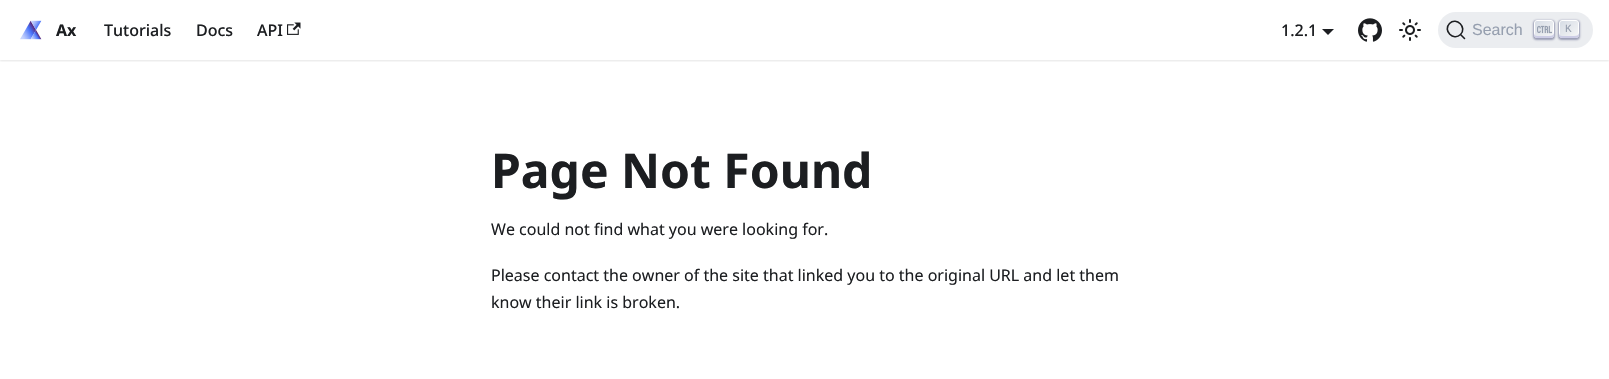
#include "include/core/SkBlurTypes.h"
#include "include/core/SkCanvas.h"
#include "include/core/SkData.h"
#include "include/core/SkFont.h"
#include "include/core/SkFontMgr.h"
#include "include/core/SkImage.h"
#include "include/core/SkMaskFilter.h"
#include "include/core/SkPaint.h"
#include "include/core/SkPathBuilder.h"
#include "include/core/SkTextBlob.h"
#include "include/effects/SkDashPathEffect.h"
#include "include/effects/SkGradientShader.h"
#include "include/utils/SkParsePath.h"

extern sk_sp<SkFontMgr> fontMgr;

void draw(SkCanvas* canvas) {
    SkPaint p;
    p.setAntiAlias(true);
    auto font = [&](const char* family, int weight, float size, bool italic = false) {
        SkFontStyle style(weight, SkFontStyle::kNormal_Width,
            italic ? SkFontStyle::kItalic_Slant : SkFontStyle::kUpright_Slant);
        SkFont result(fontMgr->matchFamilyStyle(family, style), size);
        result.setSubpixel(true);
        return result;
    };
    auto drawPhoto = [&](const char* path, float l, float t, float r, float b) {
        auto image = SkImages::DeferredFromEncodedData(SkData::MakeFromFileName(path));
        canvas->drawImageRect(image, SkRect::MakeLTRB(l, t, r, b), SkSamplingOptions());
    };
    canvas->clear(0xFFFFFFFF);
    canvas->save();
    canvas->clipRect(SkRect::MakeLTRB(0, 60, 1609, 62));
    p.setColor(0x1A000000);
    p.setMaskFilter(SkMaskFilter::MakeBlur(kNormal_SkBlurStyle, 1));
    canvas->drawRect(SkRect::MakeLTRB(0, 1, 1609, 61), p);
    p.setMaskFilter(nullptr);
    canvas->restore();
    drawPhoto("media/1.png", 20, 20, 42, 40);
    auto font1 = font("Noto Sans", 700, 16);
    p.setColor(0xFF1C1E21);
    canvas->drawString("Ax", 56, 36, font1, p);
    auto font2 = font("Noto Sans", 500, 16);
    {
        const struct { const char* s; float x, y; } items[] = {
            {"Tutorials", 104, 36},
            {"Docs", 196, 36},
            {"API", 257, 36},
        };
        for (auto [s, x, y] : items) {
            canvas->drawString(s, x, y, font2, p);
        }
    }
    drawPhoto("media/2.png", 287, 22, 301, 35);
    canvas->drawString("1.2.1", 1281, 36, font2, p);
    canvas->drawPath(SkPathBuilder().moveTo(1322, 29).lineTo(1334, 29).lineTo(1328, 35).close().detach(), p);
    drawPhoto("media/3.png", 1358, 18, 1382, 42);
    drawPhoto("media/4.png", 1399, 19, 1421, 41);
    p.setColor(0xFFEBEDF0);
    canvas->drawRoundRect(SkRect::MakeLTRB(1438, 12, 1593, 48), 18, 18, p);
    p.setStyle(SkPaint::kStroke_Style);
    p.setStrokeWidth(1.6f);
    p.setStrokeCap(SkPaint::kRound_Cap);
    p.setStrokeJoin(SkPaint::kRound_Join);
    p.setColor(0xFF1C1E21);
    canvas->drawPath(SkPathBuilder().moveTo(1460.5f, 34.5f).lineTo(1464.5f, 38.5f).lineTo(1460.5f, 34.5f).cubicTo(1453.5f, 41.5f, 1442.5f, 30.5f, 1449.5f, 23.5f).cubicTo(1456.5f, 16.5f, 1467.5f, 27.5f, 1460.5f, 34.5f).close().detach(), p);
    auto font3 = font("Liberation Sans", 400, 16);
    p.setStyle(SkPaint::kFill_Style);
    p.setColor(0xFF969FAF);
    canvas->drawString("Search", 1472, 35, font3, p);
    p.setColor(0x661E235A);
    p.setMaskFilter(SkMaskFilter::MakeBlur(kNormal_SkBlurStyle, 1));
    canvas->drawRoundRect(SkRect::MakeLTRB(1533, 20, 1555, 40), 4, 4, p);
    p.setMaskFilter(nullptr);
    {
        const SkColor colors[] = {0xFFD5DBE4, 0xFFF8F8F8};
        const float stops[] = {0, 1};
        const SkPoint ends[] = {{1535, 19}, {1554, 39}};
        p.setShader(SkGradientShader::MakeLinear(ends, colors, stops, 2, SkTileMode::kClamp));
        p.setAlpha(255);
    }
    canvas->drawRoundRect(SkRect::MakeLTRB(1534.5f, 20.5f, 1553.5f, 37.5f), 2.5f, 2.5f, p);
    p.setStyle(SkPaint::kStroke_Style);
    p.setStrokeWidth(1);
    p.setStrokeCap(SkPaint::kButt_Cap);
    p.setStrokeJoin(SkPaint::kMiter_Join);
    p.setShader(nullptr);
    p.setColor(0xFFFFFFFF);
    canvas->drawRoundRect(SkRect::MakeLTRB(1534.5f, 20.5f, 1553.5f, 37.5f), 2.5f, 2.5f, p);
    p.setStyle(SkPaint::kFill_Style);
    p.setColor(0xFFCDCDE6);
    canvas->drawPath(SkPathBuilder().moveTo(1554, 32.5f).cubicTo(1554, 35, 1552.5f, 36, 1549, 36).lineTo(1537, 36).cubicTo(1535, 36, 1534, 34.5f, 1534, 32.5f).lineTo(1534, 35).cubicTo(1534, 36.5f, 1535.5f, 38, 1537, 38).lineTo(1551, 38).cubicTo(1552.5f, 38, 1554, 36.5f, 1554, 35).close().detach(), p);
    drawPhoto("media/5.png", 1537, 25, 1552, 34);
    p.setColor(0x661E235A);
    p.setMaskFilter(SkMaskFilter::MakeBlur(kNormal_SkBlurStyle, 1));
    canvas->drawRoundRect(SkRect::MakeLTRB(1558, 20, 1580, 40), 4, 4, p);
    p.setMaskFilter(nullptr);
    {
        const SkColor colors[] = {0xFFD5DBE4, 0xFFF8F8F8};
        const float stops[] = {0, 1};
        const SkPoint ends[] = {{1560, 19}, {1579, 39}};
        p.setShader(SkGradientShader::MakeLinear(ends, colors, stops, 2, SkTileMode::kClamp));
        p.setAlpha(255);
    }
    canvas->drawRoundRect(SkRect::MakeLTRB(1559.5f, 20.5f, 1578.5f, 37.5f), 2.5f, 2.5f, p);
    p.setStyle(SkPaint::kStroke_Style);
    p.setShader(nullptr);
    p.setColor(0xFFFFFFFF);
    canvas->drawRoundRect(SkRect::MakeLTRB(1559.5f, 20.5f, 1578.5f, 37.5f), 2.5f, 2.5f, p);
    p.setStyle(SkPaint::kFill_Style);
    p.setColor(0xFFCDCDE6);
    canvas->drawPath(SkPathBuilder().moveTo(1579, 32.5f).cubicTo(1579, 35, 1577.5f, 36, 1574, 36).lineTo(1562, 36).cubicTo(1560, 36, 1559, 34.5f, 1559, 32.5f).lineTo(1559, 35).cubicTo(1559, 36.5f, 1560.5f, 38, 1562, 38).lineTo(1576, 38).cubicTo(1577.5f, 38, 1579, 36.5f, 1579, 35).close().detach(), p);
    auto font4 = font("Liberation Mono", 400, 11);
    p.setColor(0xFF969FAF);
    canvas->drawString("K", 1565, 32, font4, p);
    auto font5 = font("Noto Sans", 700, 48);
    p.setColor(0xFF1C1E21);
    canvas->drawString("Page Not Found", 491, 188, font5, p);
    auto font6 = font("Noto Sans", 400, 16);
    {
        const struct { const char* s; float x, y; } items[] = {
            {"We could not find what you were looking for.", 491, 235},
            {"Please contact the owner of the site that linked you to the original URL and let them", 491, 281},
            {"know their link is broken.", 491, 308},
        };
        for (auto [s, x, y] : items) {
            canvas->drawString(s, x, y, font6, p);
        }
    }
}
